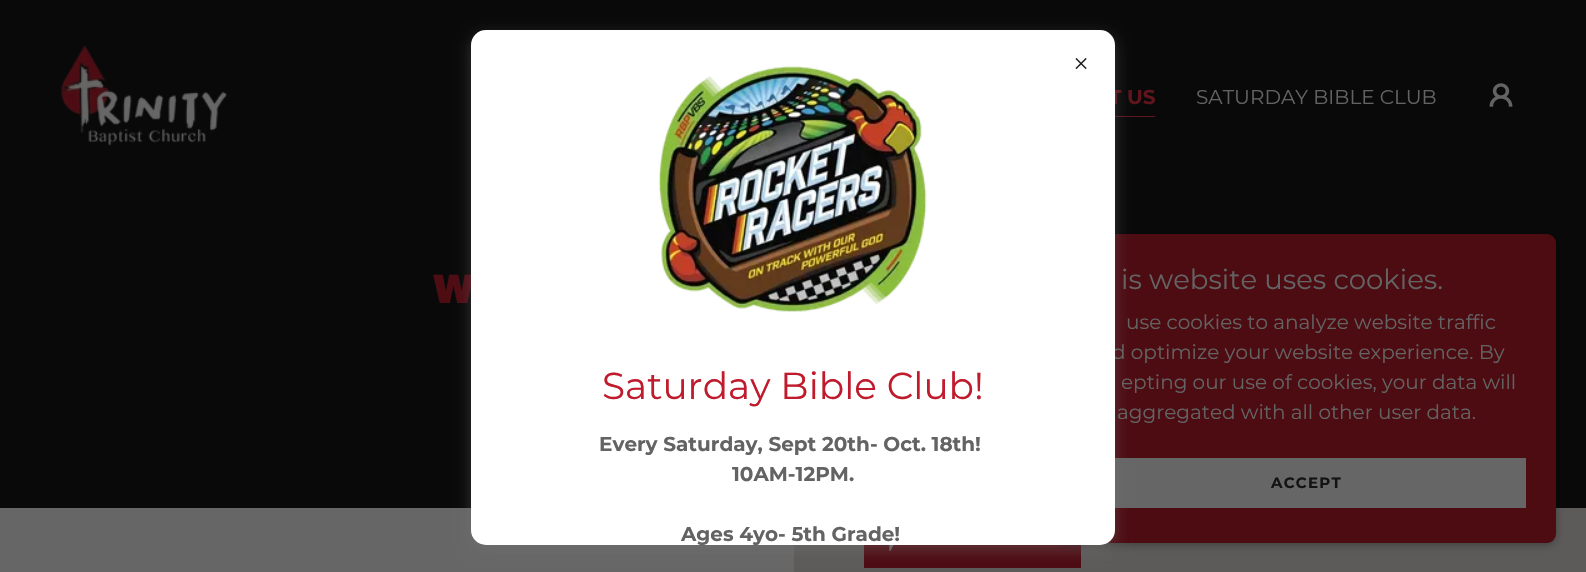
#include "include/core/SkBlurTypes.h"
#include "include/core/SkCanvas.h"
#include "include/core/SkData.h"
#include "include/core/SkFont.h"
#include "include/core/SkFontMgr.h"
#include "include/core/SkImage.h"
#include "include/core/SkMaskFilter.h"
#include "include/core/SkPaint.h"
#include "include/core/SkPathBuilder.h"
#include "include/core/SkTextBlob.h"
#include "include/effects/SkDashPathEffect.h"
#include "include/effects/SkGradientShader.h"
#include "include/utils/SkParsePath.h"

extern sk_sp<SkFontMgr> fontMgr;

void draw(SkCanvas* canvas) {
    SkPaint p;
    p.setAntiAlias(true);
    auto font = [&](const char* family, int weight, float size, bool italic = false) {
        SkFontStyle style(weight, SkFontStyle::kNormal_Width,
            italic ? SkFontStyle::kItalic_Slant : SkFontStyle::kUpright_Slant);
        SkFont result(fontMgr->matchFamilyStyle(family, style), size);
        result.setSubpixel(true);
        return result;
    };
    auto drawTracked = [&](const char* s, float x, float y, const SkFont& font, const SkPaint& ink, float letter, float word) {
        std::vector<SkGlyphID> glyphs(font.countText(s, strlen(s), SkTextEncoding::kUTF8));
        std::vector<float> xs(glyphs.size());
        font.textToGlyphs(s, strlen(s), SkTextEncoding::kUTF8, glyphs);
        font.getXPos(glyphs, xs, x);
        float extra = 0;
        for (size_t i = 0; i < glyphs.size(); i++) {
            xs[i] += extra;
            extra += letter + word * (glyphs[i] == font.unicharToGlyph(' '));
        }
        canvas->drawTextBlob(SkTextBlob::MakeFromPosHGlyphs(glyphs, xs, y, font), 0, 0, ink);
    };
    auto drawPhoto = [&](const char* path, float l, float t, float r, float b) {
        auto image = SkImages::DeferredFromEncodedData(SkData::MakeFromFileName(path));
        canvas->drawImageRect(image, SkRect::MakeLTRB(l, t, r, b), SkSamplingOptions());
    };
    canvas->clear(0xFF090909);
    drawPhoto("media/1.png", 61, 44, 227, 146);
    p.setColor(0xFF60141C);
    canvas->drawRect(SkRect::MakeLTRB(1115, 116, 1155, 117), p);
    auto font1 = font("Montserrat", 700, 20);
    canvas->drawString("T US", 1109, 104, font1, p);
    auto font2 = font("Montserrat", 400, 20);
    p.setColor(0xFF636363);
    canvas->drawString("SATURDAY BIBLE CLUB", 1196, 104, font2, p);
    drawPhoto("media/2.png", 1489, 83, 1513, 107);
    auto font3 = font("Archivo Black", 900, 41);
    p.setColor(0xFF4E0C13);
    canvas->drawString("W", 433, 303, font3, p);
    p.setColor(0xFF5C5B59);
    canvas->drawRect(SkRect::MakeLTRB(794, 508, 1586, 572), p);
    p.setColor(0xFF4D0B12);
    canvas->drawRect(SkRect::MakeLTRB(864, 545, 1081, 568), p);
    p.setColor(0x4D000000);
    p.setMaskFilter(SkMaskFilter::MakeBlur(kNormal_SkBlurStyle, 4));
    canvas->drawRoundRect(SkRect::MakeLTRB(1056, 236, 1556, 545), 9, 9, p);
    p.setMaskFilter(nullptr);
    p.setColor(0xFF4D0B12);
    canvas->drawRoundRect(SkRect::MakeLTRB(1056, 234, 1556, 543), 9, 9, p);
    auto font4 = font("Montserrat", 400, 27.5f);
    p.setColor(0xFF636363);
    canvas->drawString("is website uses cookies.", 1121, 289, font4, p);
    {
        const struct { const char* s; float x, y; } items[] = {
            {"use cookies to analyze website traffic", 1126, 329},
            {"d optimize your website experience. By", 1112, 359},
            {"epting our use of cookies, your data will", 1121, 389},
            {"aggregated with all other user data.", 1117, 419},
        };
        for (auto [s, x, y] : items) {
            canvas->drawString(s, x, y, font2, p);
        }
    }
    p.setColor(0xFF666666);
    canvas->drawRect(SkRect::MakeLTRB(1115, 458, 1526, 508), p);
    auto font5 = font("Montserrat", 700, 15);
    p.setColor(0xFF131313);
    drawTracked("ACCEPT", 1271, 488, font5, p, 1.25f, 0);
    p.setColor(0xFF666666);
    canvas->drawRect(SkRect::MakeLTRB(0, 508, 794, 572), p);
    drawPhoto("media/5.png", 889, 545, 894, 551);
    p.setColor(0x66757575);
    p.setMaskFilter(SkMaskFilter::MakeBlur(kNormal_SkBlurStyle, 7.5f));
    canvas->drawRoundRect(SkRect::MakeLTRB(471, 35, 1115, 550), 15, 15, p);
    p.setMaskFilter(nullptr);
    p.setColor(0xFFFFFFFF);
    canvas->drawRoundRect(SkRect::MakeLTRB(471, 30, 1115, 545), 15, 15, p);
    drawPhoto("media/3.png", 1075, 58, 1087, 70);
    drawPhoto("media/4.png", 658, 66, 927, 312);
    auto font6 = font("Montserrat", 400, 37.5f);
    p.setColor(0xFFC01B2D);
    canvas->drawString("Saturday Bible Club!", 602, 399, font6, p);
    p.setColor(0xFF636363);
    {
        const struct { const char* s; float x, y; } items[] = {
            {"Every Saturday, Sept 20th- Oct. 18th!", 599, 451},
            {"10AM-12PM.", 732, 481},
            {"Ages 4yo- 5th Grade!", 681, 541},
        };
        for (auto [s, x, y] : items) {
            canvas->drawString(s, x, y, font1, p);
        }
    }
}
